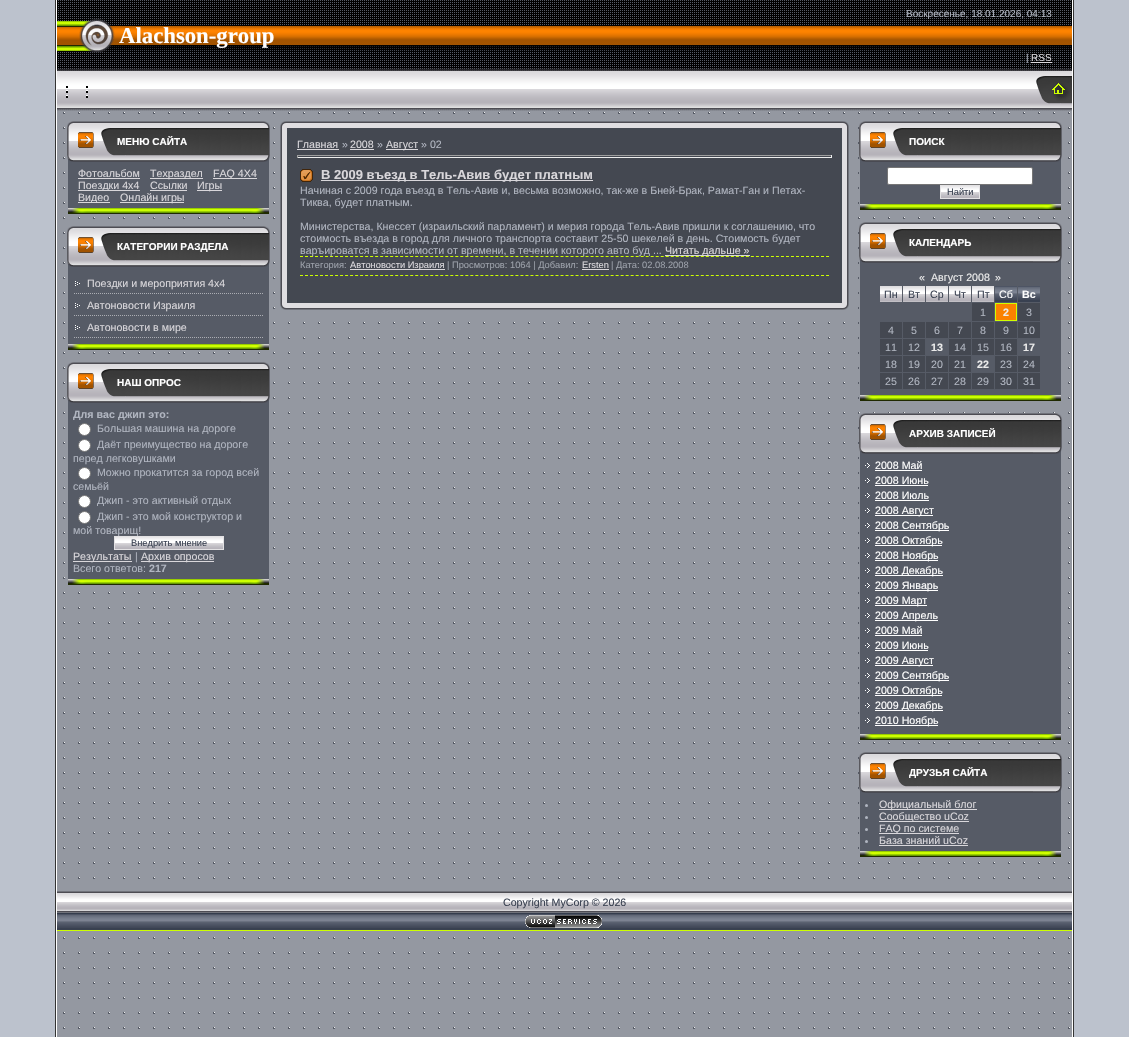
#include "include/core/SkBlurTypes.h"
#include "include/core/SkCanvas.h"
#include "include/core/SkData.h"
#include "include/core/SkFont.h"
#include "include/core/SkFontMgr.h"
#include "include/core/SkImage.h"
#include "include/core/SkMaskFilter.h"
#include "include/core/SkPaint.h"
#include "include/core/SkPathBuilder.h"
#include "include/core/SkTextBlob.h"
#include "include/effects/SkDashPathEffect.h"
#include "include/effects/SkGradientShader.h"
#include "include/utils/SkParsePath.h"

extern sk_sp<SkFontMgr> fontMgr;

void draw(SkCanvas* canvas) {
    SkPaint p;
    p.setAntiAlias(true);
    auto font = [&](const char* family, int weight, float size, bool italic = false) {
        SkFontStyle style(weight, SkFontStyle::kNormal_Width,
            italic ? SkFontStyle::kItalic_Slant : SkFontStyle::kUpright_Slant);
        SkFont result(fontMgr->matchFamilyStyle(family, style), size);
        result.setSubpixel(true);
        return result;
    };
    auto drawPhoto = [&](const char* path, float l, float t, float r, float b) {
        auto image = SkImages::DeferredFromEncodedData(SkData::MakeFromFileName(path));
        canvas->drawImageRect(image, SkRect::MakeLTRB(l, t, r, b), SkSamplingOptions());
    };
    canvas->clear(0xFFBCC2CD);
    p.setColor(0xFF333333);
    canvas->drawRect(SkRect::MakeLTRB(55, 0, 56, 1037), p);
    p.setColor(0xFF9498A1);
    canvas->drawRect(SkRect::MakeLTRB(57, 111, 1072, 1037), p);
    drawPhoto("media/1.png", 63, 111, 1070, 1029);
    p.setColor(0xFFFFFFFF);
    canvas->drawRect(SkRect::MakeLTRB(1072, 0, 1073, 1037), p);
    canvas->drawRect(SkRect::MakeLTRB(56, 0, 57, 1037), p);
    drawPhoto("media/2.png", 57, 0, 1072, 71);
    drawPhoto("media/3.png", 57, 18, 115, 70);
    auto font1 = font("Liberation Serif", 700, 22.75f);
    canvas->drawString("Alachson-group", 119, 43, font1, p);
    auto font2 = font("Liberation Sans", 400, 10);
    p.setColor(0xFFB0B5C0);
    canvas->drawString("Воскресенье, 18.01.2026, 04:13", 906, 17, font2, p);
    canvas->drawString("|", 1026, 61, font2, p);
    p.setColor(0xFFD9D7DB);
    canvas->drawString("RSS", 1031, 61, font2, p);
    canvas->drawRect(SkRect::MakeLTRB(1031, 62, 1052, 63), p);
    drawPhoto("media/4.png", 57, 71, 1072, 111);
    drawPhoto("media/5.png", 66, 86, 68, 98);
    drawPhoto("media/5.png", 86, 86, 88, 98);
    drawPhoto("media/6.png", 1033, 76, 1072, 110);
    p.setColor(0xFF565B66);
    canvas->drawRect(SkRect::MakeLTRB(68, 162, 269, 208), p);
    p.setColor(0xFF9498A1);
    canvas->drawRect(SkRect::MakeLTRB(78, 127, 260, 159), p);
    drawPhoto("media/7.png", 67, 121, 270, 162);
    auto font3 = font("Liberation Sans", 700, 10);
    p.setColor(0xFFFFFFFF);
    canvas->drawString("МЕНЮ САЙТА", 117, 145, font3, p);
    auto font4 = font("Liberation Sans", 400, 10.65f);
    p.setColor(0xFFD9D7DB);
    canvas->drawString("Фотоальбом", 78, 177, font4, p);
    canvas->drawRect(SkRect::MakeLTRB(78, 178, 140, 179), p);
    canvas->drawRect(SkRect::MakeLTRB(150, 178, 203, 179), p);
    canvas->drawString("Техраздел", 150, 177, font4, p);
    canvas->drawRect(SkRect::MakeLTRB(213, 178, 257, 179), p);
    canvas->drawString("FAQ 4X4", 213, 177, font4, p);
    canvas->drawRect(SkRect::MakeLTRB(78, 190, 140, 191), p);
    canvas->drawString("Поездки 4х4", 78, 189, font4, p);
    canvas->drawString("Ссылки", 150, 189, font4, p);
    canvas->drawRect(SkRect::MakeLTRB(150, 190, 187, 191), p);
    canvas->drawRect(SkRect::MakeLTRB(197, 190, 222, 191), p);
    canvas->drawString("Игры", 197, 189, font4, p);
    canvas->drawRect(SkRect::MakeLTRB(78, 202, 110, 203), p);
    canvas->drawString("Видео", 78, 201, font4, p);
    canvas->drawRect(SkRect::MakeLTRB(120, 202, 184, 203), p);
    canvas->drawString("Онлайн игры", 120, 201, font4, p);
    drawPhoto("media/8.png", 67, 208, 270, 214);
    p.setColor(0xFF565B66);
    canvas->drawRect(SkRect::MakeLTRB(68, 267, 269, 344), p);
    p.setColor(0xFF9498A1);
    canvas->drawRect(SkRect::MakeLTRB(78, 232, 260, 264), p);
    drawPhoto("media/7.png", 67, 226, 270, 267);
    p.setColor(0xFFFFFFFF);
    canvas->drawString("КАТЕГОРИИ РАЗДЕЛА", 117, 250, font3, p);
    drawPhoto("media/9.png", 75, 281, 80, 286);
    p.setStyle(SkPaint::kStroke_Style);
    p.setStrokeWidth(1);
    p.setColor(0xFFABADB3);
    p.setPathEffect(SkDashPathEffect::Make({{1, 1}}, 0));
    canvas->drawPath(SkPathBuilder().moveTo(74, 293.5f).lineTo(263, 293.5f).detach(), p);
    p.setPathEffect(nullptr);
    p.setStyle(SkPaint::kFill_Style);
    p.setColor(0xFFD9D7DB);
    canvas->drawString("Поездки и мероприятия 4х4", 87, 287, font4, p);
    drawPhoto("media/9.png", 75, 303, 80, 308);
    p.setStyle(SkPaint::kStroke_Style);
    p.setColor(0xFFABADB3);
    p.setPathEffect(SkDashPathEffect::Make({{1, 1}}, 0));
    canvas->drawPath(SkPathBuilder().moveTo(74, 315.5f).lineTo(263, 315.5f).detach(), p);
    p.setPathEffect(nullptr);
    p.setStyle(SkPaint::kFill_Style);
    p.setColor(0xFFD9D7DB);
    canvas->drawString("Автоновости Израиля", 87, 309, font4, p);
    drawPhoto("media/9.png", 75, 325, 80, 330);
    p.setStyle(SkPaint::kStroke_Style);
    p.setColor(0xFFABADB3);
    p.setPathEffect(SkDashPathEffect::Make({{1, 1}}, 0));
    canvas->drawPath(SkPathBuilder().moveTo(74, 337.5f).lineTo(263, 337.5f).detach(), p);
    p.setPathEffect(nullptr);
    p.setStyle(SkPaint::kFill_Style);
    p.setColor(0xFFD9D7DB);
    canvas->drawString("Автоновости в мире", 87, 331, font4, p);
    drawPhoto("media/8.png", 67, 344, 270, 350);
    p.setColor(0xFF565B66);
    canvas->drawRect(SkRect::MakeLTRB(68, 403, 269, 579), p);
    p.setColor(0xFF9498A1);
    canvas->drawRect(SkRect::MakeLTRB(78, 367, 260, 399), p);
    drawPhoto("media/7.png", 67, 362, 270, 403);
    p.setColor(0xFFFFFFFF);
    canvas->drawString("НАШ ОПРОС", 117, 386, font3, p);
    auto font5 = font("Liberation Sans", 700, 10.65f);
    p.setColor(0xFFB0B5C0);
    canvas->drawString("Для вас джип это:", 73, 418, font5, p);
    p.setColor(0xFFFFFFFF);
    canvas->drawCircle(84.5f, 429.5f, 6, p);
    p.setStyle(SkPaint::kStroke_Style);
    p.setColor(0xFF767676);
    canvas->drawCircle(84.5f, 429.5f, 6, p);
    p.setStyle(SkPaint::kFill_Style);
    p.setColor(0xFFB0B5C0);
    canvas->drawString("Большая машина на дороге", 97, 432, font4, p);
    p.setColor(0xFFFFFFFF);
    canvas->drawCircle(84.5f, 445.5f, 6, p);
    p.setStyle(SkPaint::kStroke_Style);
    p.setColor(0xFF767676);
    canvas->drawCircle(84.5f, 445.5f, 6, p);
    p.setStyle(SkPaint::kFill_Style);
    p.setColor(0xFFB0B5C0);
    canvas->drawString("Даёт преимущество на дороге", 97, 448, font4, p);
    canvas->drawString("перед легковушками", 73, 462, font4, p);
    p.setColor(0xFFFFFFFF);
    canvas->drawCircle(84.5f, 473.5f, 6, p);
    p.setStyle(SkPaint::kStroke_Style);
    p.setColor(0xFF767676);
    canvas->drawCircle(84.5f, 473.5f, 6, p);
    p.setStyle(SkPaint::kFill_Style);
    p.setColor(0xFFB0B5C0);
    canvas->drawString("Можно прокатится за город всей", 97, 476, font4, p);
    canvas->drawString("семьёй", 73, 490, font4, p);
    p.setColor(0xFFFFFFFF);
    canvas->drawCircle(84.5f, 501.5f, 6, p);
    p.setStyle(SkPaint::kStroke_Style);
    p.setColor(0xFF767676);
    canvas->drawCircle(84.5f, 501.5f, 6, p);
    p.setStyle(SkPaint::kFill_Style);
    p.setColor(0xFFB0B5C0);
    canvas->drawString("Джип - это активный отдых", 97, 504, font4, p);
    p.setColor(0xFFFFFFFF);
    canvas->drawCircle(84.5f, 517.5f, 6, p);
    p.setStyle(SkPaint::kStroke_Style);
    p.setColor(0xFF767676);
    canvas->drawCircle(84.5f, 517.5f, 6, p);
    p.setStyle(SkPaint::kFill_Style);
    p.setColor(0xFFB0B5C0);
    canvas->drawString("Джип - это мой конструктор и", 97, 520, font4, p);
    canvas->drawString("мой товарищ!", 73, 534, font4, p);
    drawPhoto("media/10.png", 115, 537, 223, 549);
    p.setStyle(SkPaint::kStroke_Style);
    p.setColor(0xFFE3E2E4);
    canvas->drawRect(SkRect::MakeLTRB(114.5f, 536.5f, 223.5f, 549.5f), p);
    auto font6 = font("Liberation Sans", 400, 9.3f);
    p.setStyle(SkPaint::kFill_Style);
    p.setColor(0xFF394151);
    canvas->drawString("Внедрить мнение", 131, 546, font6, p);
    p.setColor(0xFFD9D7DB);
    canvas->drawRect(SkRect::MakeLTRB(73, 561, 132, 562), p);
    canvas->drawString("Результаты", 73, 560, font4, p);
    p.setColor(0xFFB0B5C0);
    canvas->drawString("|", 135, 560, font4, p);
    p.setColor(0xFFD9D7DB);
    canvas->drawRect(SkRect::MakeLTRB(141, 561, 214, 562), p);
    canvas->drawString("Архив опросов", 141, 560, font4, p);
    p.setColor(0xFFB0B5C0);
    canvas->drawString("Всего ответов:", 73, 572, font4, p);
    canvas->drawString("217", 149, 572, font5, p);
    drawPhoto("media/8.png", 67, 579, 270, 585);
    drawPhoto("media/11.png", 280, 121, 287, 128);
    drawPhoto("media/12.png", 287, 121, 842, 128);
    drawPhoto("media/13.png", 842, 121, 849, 128);
    drawPhoto("media/14.png", 280, 128, 287, 303);
    p.setColor(0xFF444851);
    canvas->drawRect(SkRect::MakeLTRB(287, 128, 842, 303), p);
    p.setColor(0xFFD9D7DB);
    canvas->drawString("Главная", 297, 148, font4, p);
    canvas->drawRect(SkRect::MakeLTRB(297, 149, 339, 150), p);
    p.setColor(0xFFB0B5C0);
    canvas->drawString("»", 342, 148, font4, p);
    p.setColor(0xFFD9D7DB);
    canvas->drawString("2008", 350, 148, font4, p);
    canvas->drawRect(SkRect::MakeLTRB(350, 149, 374, 150), p);
    p.setColor(0xFFB0B5C0);
    canvas->drawString("»", 377, 148, font4, p);
    p.setColor(0xFFD9D7DB);
    canvas->drawRect(SkRect::MakeLTRB(386, 149, 418, 150), p);
    canvas->drawString("Август", 386, 148, font4, p);
    p.setColor(0xFFB0B5C0);
    canvas->drawString("» 02", 421, 148, font4, p);
    {
        const struct { float l, t, r, b; SkColor color; } items[] = {
            {297, 155, 832, 156, 0xFF9F9F9F},
            {831, 155, 832, 158, 0xFFEEEEEE},
            {297, 157, 832, 158, 0xFFEEEEEE},
            {297, 155, 298, 158, 0xFF9F9F9F},
        };
        for (auto [l, t, r, b, color] : items) {
            p.setColor(color);
            canvas->drawRect(SkRect::MakeLTRB(l, t, r, b), p);
        }
    }
    drawPhoto("media/15.png", 300, 169, 313, 182);
    p.setColor(0xFFD9D7DB);
    canvas->drawRect(SkRect::MakeLTRB(321, 180, 593, 181), p);
    auto font7 = font("Liberation Sans", 700, 13);
    canvas->drawString("В 2009 въезд в Тель-Авив будет платным", 321, 179, font7, p);
    p.setColor(0xFFB0B5C0);
    {
        const struct { const char* s; float x, y; } items[] = {
            {"Начиная с 2009 года въезд в Тель-Авив и, весьма возможно, так-же в Бней-Брак, Рамат-Ган и Петах-", 300, 194},
            {"Тиква, будет платным.", 300, 206},
            {"Министерства, Кнессет (израильский парламент) и мерия города Тель-Авив пришли к соглашению, что", 300, 230},
            {"стоимость въезда в город для личного транспорта составит 25-50 шекелей в день. Стоимость будет", 300, 242},
        };
        for (auto [s, x, y] : items) {
            canvas->drawString(s, x, y, font4, p);
        }
    }
    p.setStyle(SkPaint::kStroke_Style);
    p.setColor(0xFFCEFF00);
    p.setPathEffect(SkDashPathEffect::Make({{3, 2.01f}}, 0));
    canvas->drawPath(SkPathBuilder().moveTo(300, 256.5f).lineTo(829, 256.5f).detach(), p);
    p.setPathEffect(nullptr);
    p.setStyle(SkPaint::kFill_Style);
    p.setColor(0xFFB0B5C0);
    canvas->drawString("варъироватся в зависимости от времени, в течении которого авто буд ...", 300, 254, font4, p);
    p.setColor(0xFFD9D7DB);
    canvas->drawRect(SkRect::MakeLTRB(665, 255, 750, 256), p);
    canvas->drawString("Читать дальше »", 665, 254, font4, p);
    p.setStyle(SkPaint::kStroke_Style);
    p.setColor(0xFFCEFF00);
    p.setPathEffect(SkDashPathEffect::Make({{3, 2.01f}}, 0));
    canvas->drawPath(SkPathBuilder().moveTo(300, 275.5f).lineTo(829, 275.5f).detach(), p);
    p.setPathEffect(nullptr);
    p.setStyle(SkPaint::kFill_Style);
    p.setColor(0xFF9BA0A9);
    canvas->drawString("Категория:", 300, 268, font6, p);
    p.setColor(0xFFD9D7DB);
    canvas->drawRect(SkRect::MakeLTRB(350, 269, 445, 270), p);
    canvas->drawString("Автоновости Израиля", 350, 268, font6, p);
    p.setColor(0xFF9BA0A9);
    canvas->drawString("| Просмотров: 1064 | Добавил:", 447, 268, font6, p);
    p.setColor(0xFFD9D7DB);
    canvas->drawString("Ersten", 582, 268, font6, p);
    canvas->drawRect(SkRect::MakeLTRB(582, 269, 609, 270), p);
    p.setColor(0xFF9BA0A9);
    canvas->drawString("| Дата: 02.08.2008", 611, 268, font6, p);
    drawPhoto("media/16.png", 842, 128, 849, 303);
    drawPhoto("media/17.png", 280, 303, 287, 310);
    drawPhoto("media/18.png", 287, 303, 842, 310);
    drawPhoto("media/19.png", 842, 303, 849, 310);
    p.setColor(0xFF565B66);
    canvas->drawRect(SkRect::MakeLTRB(860, 162, 1061, 204), p);
    p.setColor(0xFF9498A1);
    canvas->drawRect(SkRect::MakeLTRB(859, 127, 1055, 159), p);
    drawPhoto("media/7.png", 859, 121, 1062, 162);
    p.setColor(0xFFFFFFFF);
    canvas->drawString("ПОИСК", 909, 145, font3, p);
    p.setColor(0xFF9498A1);
    canvas->drawRect(SkRect::MakeLTRB(859, 172, 860, 204), p);
    p.setColor(0xFFFFFFFF);
    canvas->drawRoundRect(SkRect::MakeLTRB(887.5f, 167.5f, 1032.5f, 184.5f), 1.5f, 1.5f, p);
    p.setStyle(SkPaint::kStroke_Style);
    p.setColor(0xFF767676);
    canvas->drawRoundRect(SkRect::MakeLTRB(887.5f, 167.5f, 1032.5f, 184.5f), 1.5f, 1.5f, p);
    drawPhoto("media/20.png", 941, 186, 979, 198);
    p.setColor(0xFFE3E2E4);
    canvas->drawRect(SkRect::MakeLTRB(940.5f, 185.5f, 979.5f, 198.5f), p);
    p.setStyle(SkPaint::kFill_Style);
    p.setColor(0xFF394151);
    canvas->drawString("Найти", 947, 195, font6, p);
    drawPhoto("media/8.png", 859, 204, 1062, 210);
    p.setColor(0xFF565B66);
    canvas->drawRect(SkRect::MakeLTRB(860, 263, 1061, 395), p);
    p.setColor(0xFF9498A1);
    canvas->drawRect(SkRect::MakeLTRB(859, 232, 1055, 263), p);
    drawPhoto("media/7.png", 859, 222, 1062, 263);
    p.setColor(0xFFFFFFFF);
    canvas->drawString("КАЛЕНДАРЬ", 909, 246, font3, p);
    p.setColor(0xFF9498A1);
    canvas->drawRect(SkRect::MakeLTRB(859, 263, 860, 384), p);
    p.setColor(0xFFEBEBEB);
    {
        const struct { const char* s; float x, y; } items[] = {
            {"«", 919, 281},
            {"Август 2008", 931, 281},
            {"»", 995, 281},
        };
        for (auto [s, x, y] : items) {
            canvas->drawString(s, x, y, font4, p);
        }
    }
    drawPhoto("media/21.png", 880, 286, 902, 302);
    p.setColor(0xFF394151);
    canvas->drawString("Пн", 884, 298, font4, p);
    drawPhoto("media/21.png", 903, 286, 925, 302);
    canvas->drawString("Вт", 908, 298, font4, p);
    drawPhoto("media/21.png", 926, 286, 948, 302);
    canvas->drawString("Ср", 930, 298, font4, p);
    drawPhoto("media/21.png", 949, 286, 971, 302);
    canvas->drawString("Чт", 954, 298, font4, p);
    drawPhoto("media/21.png", 972, 286, 994, 302);
    canvas->drawString("Пт", 977, 298, font4, p);
    canvas->drawRect(SkRect::MakeLTRB(995, 300, 1017, 302), p);
    drawPhoto("media/22.png", 995, 286, 1017, 300);
    p.setColor(0xFFFFFFFF);
    canvas->drawString("Сб", 999, 298, font4, p);
    p.setColor(0xFF394151);
    canvas->drawRect(SkRect::MakeLTRB(1018, 300, 1040, 302), p);
    drawPhoto("media/22.png", 1018, 286, 1040, 300);
    p.setColor(0xFFFFFFFF);
    canvas->drawString("Вс", 1022, 298, font5, p);
    p.setColor(0xFF444851);
    canvas->drawRect(SkRect::MakeLTRB(972, 303, 994, 321), p);
    p.setColor(0xFFB0B5C0);
    canvas->drawString("1", 980, 316, font4, p);
    p.setColor(0xFFFB8100);
    canvas->drawRect(SkRect::MakeLTRB(995.5f, 303.5f, 1016.5f, 320.5f), p);
    p.setStyle(SkPaint::kStroke_Style);
    p.setColor(0xFFD1FF00);
    canvas->drawRect(SkRect::MakeLTRB(995.5f, 303.5f, 1016.5f, 320.5f), p);
    p.setStyle(SkPaint::kFill_Style);
    p.setColor(0xFFEBEBEB);
    canvas->drawString("2", 1003, 316, font5, p);
    p.setColor(0xFF444851);
    canvas->drawRect(SkRect::MakeLTRB(1018, 303, 1040, 321), p);
    p.setColor(0xFFB0B5C0);
    canvas->drawString("3", 1026, 316, font4, p);
    p.setColor(0xFF444851);
    canvas->drawRect(SkRect::MakeLTRB(880, 322, 902, 338), p);
    p.setColor(0xFFB0B5C0);
    canvas->drawString("4", 888, 334, font4, p);
    p.setColor(0xFF444851);
    canvas->drawRect(SkRect::MakeLTRB(903, 322, 925, 338), p);
    p.setColor(0xFFB0B5C0);
    canvas->drawString("5", 911, 334, font4, p);
    p.setColor(0xFF444851);
    canvas->drawRect(SkRect::MakeLTRB(926, 322, 948, 338), p);
    p.setColor(0xFFB0B5C0);
    canvas->drawString("6", 934, 334, font4, p);
    p.setColor(0xFF444851);
    canvas->drawRect(SkRect::MakeLTRB(949, 322, 971, 338), p);
    p.setColor(0xFFB0B5C0);
    canvas->drawString("7", 957, 334, font4, p);
    p.setColor(0xFF444851);
    canvas->drawRect(SkRect::MakeLTRB(972, 322, 994, 338), p);
    p.setColor(0xFFB0B5C0);
    canvas->drawString("8", 980, 334, font4, p);
    p.setColor(0xFF444851);
    canvas->drawRect(SkRect::MakeLTRB(995, 322, 1017, 338), p);
    p.setColor(0xFFB0B5C0);
    canvas->drawString("9", 1003, 334, font4, p);
    p.setColor(0xFF444851);
    canvas->drawRect(SkRect::MakeLTRB(1018, 322, 1040, 338), p);
    p.setColor(0xFFB0B5C0);
    canvas->drawString("10", 1023, 334, font4, p);
    p.setColor(0xFF444851);
    canvas->drawRect(SkRect::MakeLTRB(880, 339, 902, 355), p);
    p.setColor(0xFFB0B5C0);
    canvas->drawString("11", 885, 351, font4, p);
    p.setColor(0xFF444851);
    canvas->drawRect(SkRect::MakeLTRB(903, 339, 925, 355), p);
    p.setColor(0xFFB0B5C0);
    canvas->drawString("12", 908, 351, font4, p);
    p.setColor(0xFFEBEBEB);
    canvas->drawString("13", 931, 351, font5, p);
    p.setColor(0xFF444851);
    canvas->drawRect(SkRect::MakeLTRB(949, 339, 971, 355), p);
    p.setColor(0xFFB0B5C0);
    canvas->drawString("14", 954, 351, font4, p);
    p.setColor(0xFF444851);
    canvas->drawRect(SkRect::MakeLTRB(972, 339, 994, 355), p);
    p.setColor(0xFFB0B5C0);
    canvas->drawString("15", 977, 351, font4, p);
    p.setColor(0xFF444851);
    canvas->drawRect(SkRect::MakeLTRB(995, 339, 1017, 355), p);
    p.setColor(0xFFB0B5C0);
    canvas->drawString("16", 1000, 351, font4, p);
    p.setColor(0xFFEBEBEB);
    canvas->drawString("17", 1023, 351, font5, p);
    p.setColor(0xFF444851);
    canvas->drawRect(SkRect::MakeLTRB(880, 356, 902, 372), p);
    p.setColor(0xFFB0B5C0);
    canvas->drawString("18", 885, 368, font4, p);
    p.setColor(0xFF444851);
    canvas->drawRect(SkRect::MakeLTRB(903, 356, 925, 372), p);
    p.setColor(0xFFB0B5C0);
    canvas->drawString("19", 908, 368, font4, p);
    p.setColor(0xFF444851);
    canvas->drawRect(SkRect::MakeLTRB(926, 356, 948, 372), p);
    p.setColor(0xFFB0B5C0);
    canvas->drawString("20", 931, 368, font4, p);
    p.setColor(0xFF444851);
    canvas->drawRect(SkRect::MakeLTRB(949, 356, 971, 372), p);
    p.setColor(0xFFB0B5C0);
    canvas->drawString("21", 954, 368, font4, p);
    p.setColor(0xFFEBEBEB);
    canvas->drawString("22", 977, 368, font5, p);
    p.setColor(0xFF444851);
    canvas->drawRect(SkRect::MakeLTRB(995, 356, 1017, 372), p);
    p.setColor(0xFFB0B5C0);
    canvas->drawString("23", 1000, 368, font4, p);
    p.setColor(0xFF444851);
    canvas->drawRect(SkRect::MakeLTRB(1018, 356, 1040, 372), p);
    p.setColor(0xFFB0B5C0);
    canvas->drawString("24", 1023, 368, font4, p);
    p.setColor(0xFF444851);
    canvas->drawRect(SkRect::MakeLTRB(880, 373, 902, 389), p);
    p.setColor(0xFFB0B5C0);
    canvas->drawString("25", 885, 385, font4, p);
    p.setColor(0xFF444851);
    canvas->drawRect(SkRect::MakeLTRB(903, 373, 925, 389), p);
    p.setColor(0xFFB0B5C0);
    canvas->drawString("26", 908, 385, font4, p);
    p.setColor(0xFF444851);
    canvas->drawRect(SkRect::MakeLTRB(926, 373, 948, 389), p);
    p.setColor(0xFFB0B5C0);
    canvas->drawString("27", 931, 385, font4, p);
    p.setColor(0xFF444851);
    canvas->drawRect(SkRect::MakeLTRB(949, 373, 971, 389), p);
    p.setColor(0xFFB0B5C0);
    canvas->drawString("28", 954, 385, font4, p);
    p.setColor(0xFF444851);
    canvas->drawRect(SkRect::MakeLTRB(972, 373, 994, 389), p);
    p.setColor(0xFFB0B5C0);
    canvas->drawString("29", 977, 385, font4, p);
    p.setColor(0xFF444851);
    canvas->drawRect(SkRect::MakeLTRB(995, 373, 1017, 389), p);
    p.setColor(0xFFB0B5C0);
    canvas->drawString("30", 1000, 385, font4, p);
    p.setColor(0xFF444851);
    canvas->drawRect(SkRect::MakeLTRB(1018, 373, 1040, 389), p);
    p.setColor(0xFFB0B5C0);
    canvas->drawString("31", 1023, 385, font4, p);
    drawPhoto("media/8.png", 859, 395, 1062, 401);
    p.setColor(0xFF565B66);
    canvas->drawRect(SkRect::MakeLTRB(860, 454, 1061, 734), p);
    p.setColor(0xFF9498A1);
    canvas->drawRect(SkRect::MakeLTRB(859, 413, 1055, 444), p);
    drawPhoto("media/7.png", 859, 413, 1062, 454);
    p.setColor(0xFFFFFFFF);
    canvas->drawString("АРХИВ ЗАПИСЕЙ", 909, 437, font3, p);
    p.setColor(0xFF9498A1);
    canvas->drawRect(SkRect::MakeLTRB(859, 454, 860, 734), p);
    drawPhoto("media/23.png", 865, 463, 870, 468);
    p.setColor(0xFFFFFFFF);
    canvas->drawString("2008 Май", 875, 469, font4, p);
    canvas->drawRect(SkRect::MakeLTRB(875, 470, 922, 471), p);
    drawPhoto("media/23.png", 865, 478, 870, 483);
    canvas->drawString("2008 Июнь", 875, 484, font4, p);
    canvas->drawRect(SkRect::MakeLTRB(875, 485, 928, 486), p);
    drawPhoto("media/23.png", 865, 493, 870, 498);
    canvas->drawString("2008 Июль", 875, 499, font4, p);
    canvas->drawRect(SkRect::MakeLTRB(875, 500, 929, 501), p);
    drawPhoto("media/23.png", 865, 508, 870, 513);
    canvas->drawRect(SkRect::MakeLTRB(875, 515, 933, 516), p);
    canvas->drawString("2008 Август", 875, 514, font4, p);
    drawPhoto("media/23.png", 865, 523, 870, 528);
    canvas->drawRect(SkRect::MakeLTRB(875, 530, 949, 531), p);
    canvas->drawString("2008 Сентябрь", 875, 529, font4, p);
    drawPhoto("media/23.png", 865, 538, 870, 543);
    canvas->drawRect(SkRect::MakeLTRB(875, 545, 942, 546), p);
    canvas->drawString("2008 Октябрь", 875, 544, font4, p);
    drawPhoto("media/23.png", 865, 553, 870, 558);
    canvas->drawRect(SkRect::MakeLTRB(875, 560, 938, 561), p);
    canvas->drawString("2008 Ноябрь", 875, 559, font4, p);
    drawPhoto("media/23.png", 865, 568, 870, 573);
    canvas->drawRect(SkRect::MakeLTRB(875, 575, 943, 576), p);
    canvas->drawString("2008 Декабрь", 875, 574, font4, p);
    drawPhoto("media/23.png", 865, 583, 870, 588);
    canvas->drawRect(SkRect::MakeLTRB(875, 590, 938, 591), p);
    canvas->drawString("2009 Январь", 875, 589, font4, p);
    drawPhoto("media/23.png", 865, 598, 870, 603);
    canvas->drawRect(SkRect::MakeLTRB(875, 605, 927, 606), p);
    canvas->drawString("2009 Март", 875, 604, font4, p);
    drawPhoto("media/23.png", 865, 613, 870, 618);
    canvas->drawRect(SkRect::MakeLTRB(875, 620, 938, 621), p);
    canvas->drawString("2009 Апрель", 875, 619, font4, p);
    drawPhoto("media/23.png", 865, 628, 870, 633);
    canvas->drawString("2009 Май", 875, 634, font4, p);
    canvas->drawRect(SkRect::MakeLTRB(875, 635, 922, 636), p);
    drawPhoto("media/23.png", 865, 643, 870, 648);
    canvas->drawString("2009 Июнь", 875, 649, font4, p);
    canvas->drawRect(SkRect::MakeLTRB(875, 650, 928, 651), p);
    drawPhoto("media/23.png", 865, 658, 870, 663);
    canvas->drawRect(SkRect::MakeLTRB(875, 665, 933, 666), p);
    canvas->drawString("2009 Август", 875, 664, font4, p);
    drawPhoto("media/23.png", 865, 673, 870, 678);
    canvas->drawRect(SkRect::MakeLTRB(875, 680, 949, 681), p);
    canvas->drawString("2009 Сентябрь", 875, 679, font4, p);
    drawPhoto("media/23.png", 865, 688, 870, 693);
    canvas->drawRect(SkRect::MakeLTRB(875, 695, 942, 696), p);
    canvas->drawString("2009 Октябрь", 875, 694, font4, p);
    drawPhoto("media/23.png", 865, 703, 870, 708);
    canvas->drawRect(SkRect::MakeLTRB(875, 710, 943, 711), p);
    canvas->drawString("2009 Декабрь", 875, 709, font4, p);
    drawPhoto("media/23.png", 865, 718, 870, 723);
    canvas->drawRect(SkRect::MakeLTRB(875, 725, 938, 726), p);
    canvas->drawString("2010 Ноябрь", 875, 724, font4, p);
    drawPhoto("media/8.png", 859, 734, 1062, 740);
    p.setColor(0xFF565B66);
    canvas->drawRect(SkRect::MakeLTRB(860, 793, 1061, 851), p);
    p.setColor(0xFF9498A1);
    canvas->drawRect(SkRect::MakeLTRB(859, 757, 1055, 789), p);
    drawPhoto("media/7.png", 859, 752, 1062, 793);
    p.setColor(0xFFFFFFFF);
    canvas->drawString("ДРУЗЬЯ САЙТА", 909, 776, font3, p);
    p.setColor(0xFF9498A1);
    canvas->drawRect(SkRect::MakeLTRB(859, 802, 860, 851), p);
    p.setColor(0xFFB0B5C0);
    canvas->drawCircle(866.5f, 805.5f, 1.5f, p);
    p.setColor(0xFFD9D7DB);
    canvas->drawRect(SkRect::MakeLTRB(879, 809, 977, 810), p);
    canvas->drawString("Официальный блог", 879, 808, font4, p);
    p.setColor(0xFFB0B5C0);
    canvas->drawCircle(866.5f, 817.5f, 1.5f, p);
    p.setColor(0xFFD9D7DB);
    canvas->drawRect(SkRect::MakeLTRB(879, 821, 969, 822), p);
    canvas->drawString("Сообщество uCoz", 879, 820, font4, p);
    p.setColor(0xFFB0B5C0);
    canvas->drawCircle(866.5f, 829.5f, 1.5f, p);
    p.setColor(0xFFD9D7DB);
    canvas->drawRect(SkRect::MakeLTRB(879, 833, 959, 834), p);
    canvas->drawString("FAQ по системе", 879, 832, font4, p);
    p.setColor(0xFFB0B5C0);
    canvas->drawCircle(866.5f, 841.5f, 1.5f, p);
    p.setColor(0xFFD9D7DB);
    canvas->drawString("База знаний uCoz", 879, 844, font4, p);
    canvas->drawRect(SkRect::MakeLTRB(879, 845, 968, 846), p);
    drawPhoto("media/8.png", 859, 851, 1062, 857);
    drawPhoto("media/24.png", 57, 891, 1072, 913);
    p.setColor(0xFF394151);
    canvas->drawString("Copyright MyCorp © 2026", 503, 906, font4, p);
    canvas->drawRect(SkRect::MakeLTRB(57, 928, 1072, 930), p);
    drawPhoto("media/25.png", 57, 913, 1072, 928);
    p.setColor(0xFFCCFF00);
    canvas->drawRect(SkRect::MakeLTRB(57, 930, 1072, 931), p);
    drawPhoto("media/26.png", 525, 915, 602, 928);
    p.setColor(0xFF333333);
    canvas->drawRect(SkRect::MakeLTRB(1073, 0, 1074, 1037), p);
}
